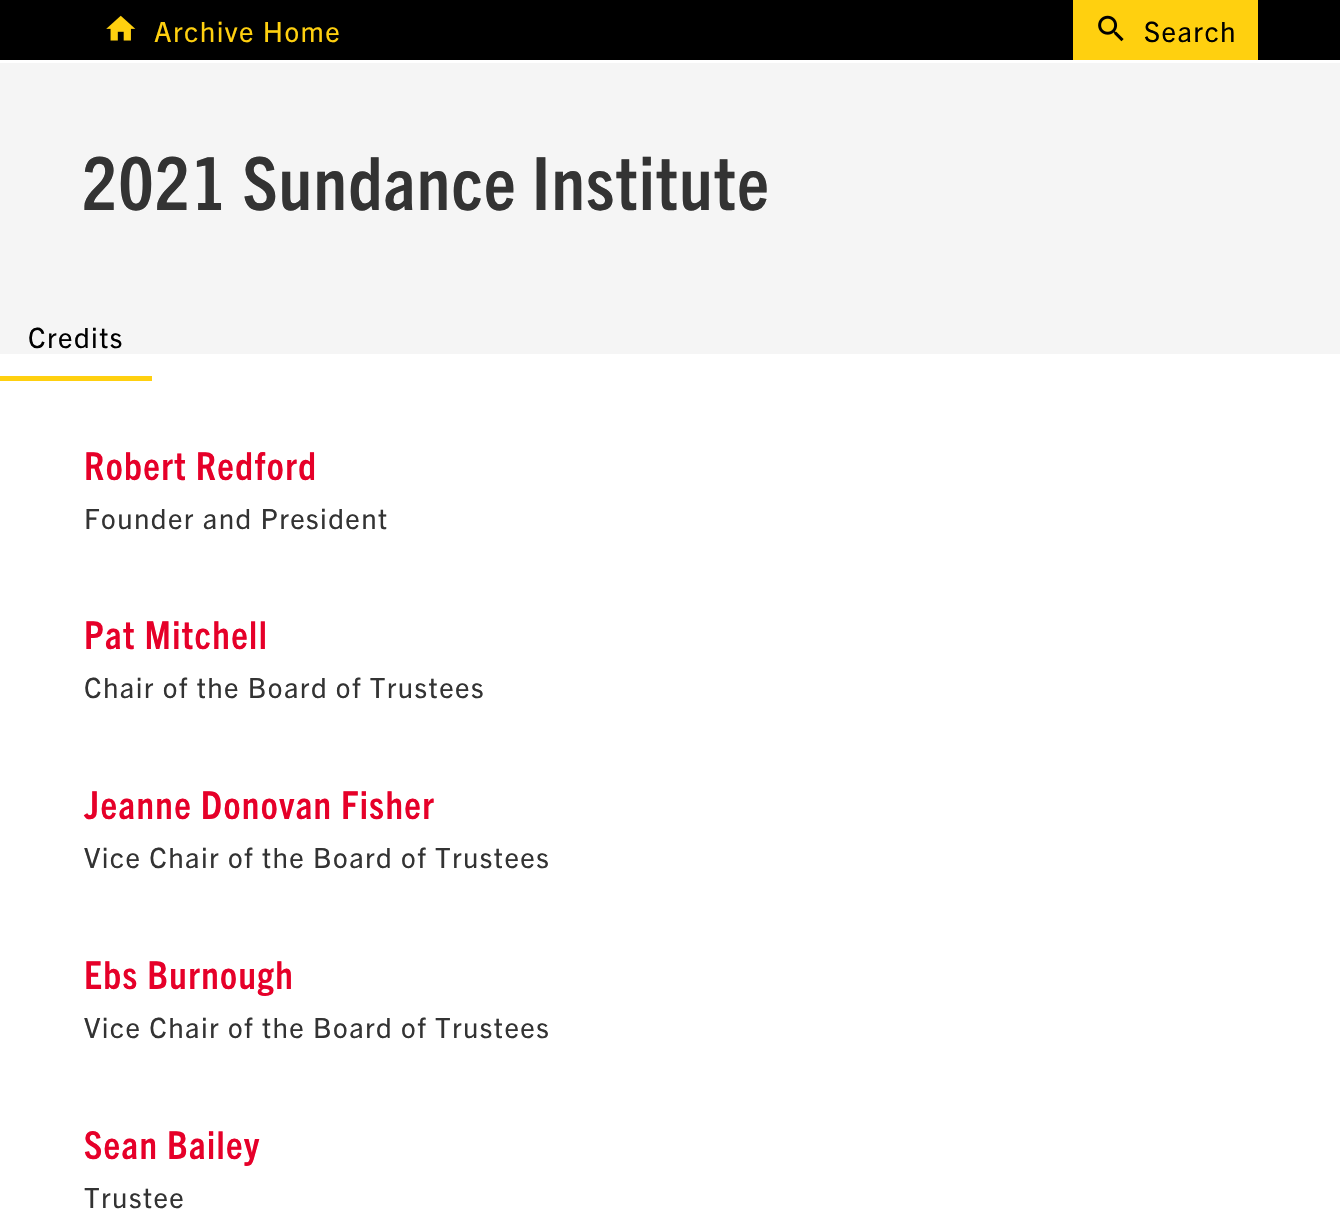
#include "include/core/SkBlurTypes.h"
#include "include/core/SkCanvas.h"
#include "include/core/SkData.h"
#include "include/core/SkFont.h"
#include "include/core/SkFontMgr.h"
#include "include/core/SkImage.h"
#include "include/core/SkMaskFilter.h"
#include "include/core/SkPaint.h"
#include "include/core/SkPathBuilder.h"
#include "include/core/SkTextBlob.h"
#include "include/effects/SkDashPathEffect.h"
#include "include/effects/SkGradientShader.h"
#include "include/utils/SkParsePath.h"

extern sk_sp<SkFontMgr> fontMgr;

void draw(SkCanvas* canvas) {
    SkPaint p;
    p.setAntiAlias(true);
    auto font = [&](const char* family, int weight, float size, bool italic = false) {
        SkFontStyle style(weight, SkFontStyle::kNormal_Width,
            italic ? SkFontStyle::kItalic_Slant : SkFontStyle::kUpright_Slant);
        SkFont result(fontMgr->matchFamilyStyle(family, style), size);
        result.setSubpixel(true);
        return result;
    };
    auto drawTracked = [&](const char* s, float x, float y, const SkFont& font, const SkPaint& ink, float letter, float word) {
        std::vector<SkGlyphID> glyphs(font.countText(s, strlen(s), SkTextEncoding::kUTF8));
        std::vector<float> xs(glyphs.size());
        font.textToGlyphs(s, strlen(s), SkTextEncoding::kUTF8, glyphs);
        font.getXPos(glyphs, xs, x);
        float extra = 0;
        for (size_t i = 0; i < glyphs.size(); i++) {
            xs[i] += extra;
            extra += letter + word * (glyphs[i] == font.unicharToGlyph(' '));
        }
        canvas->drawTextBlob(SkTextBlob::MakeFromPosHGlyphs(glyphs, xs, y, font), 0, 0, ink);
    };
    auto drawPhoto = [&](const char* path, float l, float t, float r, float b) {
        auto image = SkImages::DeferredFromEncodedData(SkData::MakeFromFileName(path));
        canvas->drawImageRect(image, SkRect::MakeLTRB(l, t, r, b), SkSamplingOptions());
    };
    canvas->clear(0xFFFFFFFF);
    p.setColor(0xFF000000);
    canvas->drawRect(SkRect::MakeLTRB(0, 0, 1340, 60), p);
    drawPhoto("media/1.png", 106, 15, 136, 41);
    auto font1 = font("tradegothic", 400, 28);
    p.setColor(0xFFFFD00F);
    drawTracked("Archive Home", 154, 42, font1, p, 1.4f, 0);
    canvas->drawRect(SkRect::MakeLTRB(1073, 0, 1258, 60), p);
    drawPhoto("media/2.png", 1098, 15, 1124, 42);
    p.setColor(0xFF000000);
    drawTracked("Search", 1144, 42, font1, p, 1.4f, 0);
    p.setColor(0xFFF5F5F5);
    canvas->drawRect(SkRect::MakeLTRB(0, 63, 1340, 354), p);
    auto font2 = font("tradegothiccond", 400, 73.5f);
    p.setColor(0xFF333333);
    drawTracked("2021 Sundance Institute", 82, 210, font2, p, 1.4f, 0);
    p.setColor(0xFFFFD00F);
    canvas->drawRect(SkRect::MakeLTRB(0, 376, 152, 381), p);
    p.setColor(0xFF000000);
    drawTracked("Credits", 28, 348, font1, p, 1.4f, 0);
    auto font3 = font("tradegothiccond", 400, 38.5f);
    p.setColor(0xFFE60029);
    drawTracked("Robert Redford", 84, 480, font3, p, 1.4f, 0);
    p.setColor(0xFF333333);
    drawTracked("Founder and President", 84, 529, font1, p, 1.4f, 0);
    p.setColor(0xFFE60029);
    drawTracked("Pat Mitchell", 84, 649, font3, p, 1.4f, 0);
    p.setColor(0xFF333333);
    drawTracked("Chair of the Board of Trustees", 84, 698, font1, p, 1.4f, 0);
    p.setColor(0xFFE60029);
    drawTracked("Jeanne Donovan Fisher", 84, 819, font3, p, 1.4f, 0);
    p.setColor(0xFF333333);
    drawTracked("Vice Chair of the Board of Trustees", 84, 868, font1, p, 1.4f, 0);
    p.setColor(0xFFE60029);
    drawTracked("Ebs Burnough", 84, 989, font3, p, 1.4f, 0);
    p.setColor(0xFF333333);
    drawTracked("Vice Chair of the Board of Trustees", 84, 1038, font1, p, 1.4f, 0);
    p.setColor(0xFFE60029);
    drawTracked("Sean Bailey", 84, 1159, font3, p, 1.4f, 0);
    p.setColor(0xFF333333);
    drawTracked("Trustee", 84, 1208, font1, p, 1.4f, 0);
}
